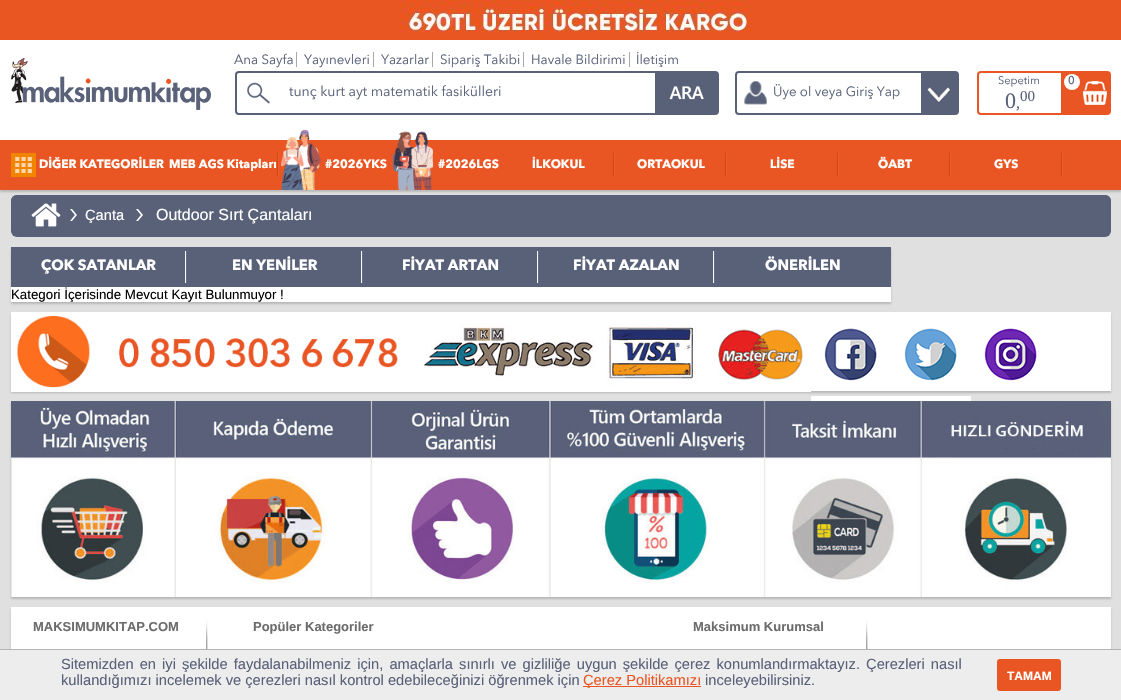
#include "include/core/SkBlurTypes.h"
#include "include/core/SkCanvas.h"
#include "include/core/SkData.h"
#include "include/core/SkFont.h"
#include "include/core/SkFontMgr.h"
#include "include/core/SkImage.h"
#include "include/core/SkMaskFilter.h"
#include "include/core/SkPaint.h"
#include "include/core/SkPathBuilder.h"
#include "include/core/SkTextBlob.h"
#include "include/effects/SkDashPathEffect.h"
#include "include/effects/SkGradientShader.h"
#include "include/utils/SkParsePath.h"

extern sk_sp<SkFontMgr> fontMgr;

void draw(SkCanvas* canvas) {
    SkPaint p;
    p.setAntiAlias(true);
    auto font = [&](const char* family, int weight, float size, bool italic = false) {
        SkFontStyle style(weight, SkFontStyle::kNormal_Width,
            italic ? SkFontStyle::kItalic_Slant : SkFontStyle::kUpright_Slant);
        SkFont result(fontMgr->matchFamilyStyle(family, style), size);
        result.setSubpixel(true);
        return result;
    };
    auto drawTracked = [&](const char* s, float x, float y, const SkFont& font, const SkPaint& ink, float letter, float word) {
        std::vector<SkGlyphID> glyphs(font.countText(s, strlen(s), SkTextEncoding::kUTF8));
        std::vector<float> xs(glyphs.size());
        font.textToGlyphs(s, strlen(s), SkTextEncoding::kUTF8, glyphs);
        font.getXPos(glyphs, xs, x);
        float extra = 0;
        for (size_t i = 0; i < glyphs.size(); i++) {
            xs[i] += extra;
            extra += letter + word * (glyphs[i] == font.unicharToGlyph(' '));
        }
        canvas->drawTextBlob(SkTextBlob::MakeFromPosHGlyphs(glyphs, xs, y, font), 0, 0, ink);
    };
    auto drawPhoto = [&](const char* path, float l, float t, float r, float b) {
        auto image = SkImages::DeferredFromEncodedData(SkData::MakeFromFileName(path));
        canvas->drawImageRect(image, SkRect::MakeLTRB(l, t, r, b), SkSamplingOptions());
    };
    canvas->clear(0xFFE0E0E0);
    p.setColor(0xFFE95622);
    canvas->drawRect(SkRect::MakeLTRB(0, 0, 1121, 40), p);
    drawPhoto("media/1.png", 399, 0, 753, 33);
    p.setColor(0xFFB8B8B8);
    p.setMaskFilter(SkMaskFilter::MakeBlur(kNormal_SkBlurStyle, 1));
    canvas->drawRect(SkRect::MakeLTRB(0, 142, 1121, 192), p);
    p.setMaskFilter(nullptr);
    p.setColor(0xFFFFFFFF);
    canvas->drawRect(SkRect::MakeLTRB(0, 40, 1121, 140), p);
    drawPhoto("media/2.png", 11, 58, 211, 110);
    auto font1 = font("Avenir Next", 400, 13.3f);
    p.setColor(0xFF596179);
    canvas->drawString("Ana Sayfa", 234, 64, font1, p);
    p.setColor(0xFFA9A9A9);
    canvas->drawRect(SkRect::MakeLTRB(296, 52, 297, 67), p);
    p.setColor(0xFF596179);
    canvas->drawString("Yayınevleri", 304, 64, font1, p);
    p.setColor(0xFFA9A9A9);
    canvas->drawRect(SkRect::MakeLTRB(373, 52, 374, 67), p);
    p.setColor(0xFF596179);
    canvas->drawString("Yazarlar", 381, 64, font1, p);
    p.setColor(0xFFA9A9A9);
    canvas->drawRect(SkRect::MakeLTRB(432, 52, 433, 67), p);
    p.setColor(0xFF596179);
    canvas->drawString("Sipariş Takibi", 440, 64, font1, p);
    p.setColor(0xFFA9A9A9);
    canvas->drawRect(SkRect::MakeLTRB(523, 52, 524, 67), p);
    p.setColor(0xFF596179);
    canvas->drawString("Havale Bildirimi", 531, 64, font1, p);
    p.setColor(0xFFA9A9A9);
    canvas->drawRect(SkRect::MakeLTRB(629, 52, 630, 67), p);
    p.setColor(0xFF596179);
    canvas->drawString("İletişim", 636, 64, font1, p);
    drawPhoto("media/3.png", 921, 73, 957, 113);
    p.setStyle(SkPaint::kStroke_Style);
    p.setStrokeWidth(2);
    canvas->drawRoundRect(SkRect::MakeLTRB(736, 72, 958, 114), 3, 3, p);
    drawPhoto("media/4.png", 744, 81, 767, 105);
    p.setStyle(SkPaint::kFill_Style);
    canvas->drawString("Üye ol veya Giriş Yap", 773, 96, font1, p);
    drawPhoto("media/5.png", 1061, 73, 1109, 113);
    p.setStyle(SkPaint::kStroke_Style);
    p.setColor(0xFFE95623);
    canvas->drawRoundRect(SkRect::MakeLTRB(978, 72, 1110, 114), 3, 3, p);
    auto font2 = font("Avenir Next", 400, 11);
    p.setStyle(SkPaint::kFill_Style);
    p.setColor(0xFF596179);
    canvas->drawString("Sepetim", 998, 84, font2, p);
    p.setColor(0xFFFFFFFF);
    canvas->drawCircle(1072, 82, 8, p);
    auto font3 = font("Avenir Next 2", 700, 11);
    p.setColor(0xFF596179);
    canvas->drawString("0", 1068, 84, font3, p);
    auto font4 = font("Liberation Serif", 400, 22);
    canvas->drawString("0", 1005, 108, font4, p);
    auto font5 = font("Liberation Serif", 400, 16);
    canvas->drawString(",", 1016, 108, font5, p);
    auto font6 = font("Liberation Serif", 400, 15);
    canvas->drawString("00", 1020, 101, font6, p);
    drawPhoto("media/6.png", 247, 82, 270, 104);
    p.setStyle(SkPaint::kStroke_Style);
    canvas->drawRoundRect(SkRect::MakeLTRB(236, 72, 718, 114), 3, 3, p);
    auto font7 = font("Avenir Next", 400, 14);
    p.setStyle(SkPaint::kFill_Style);
    canvas->drawString("tunç kurt ayt matematik fasikülleri", 289, 96, font7, p);
    drawPhoto("media/7.png", 655, 73, 717, 113);
    p.setColor(0xFFE95623);
    canvas->drawRect(SkRect::MakeLTRB(0, 140, 1121, 190), p);
    drawPhoto("media/8.png", 11, 153, 36, 177);
    auto font8 = font("Avenir Next", 700, 12);
    p.setColor(0xFFFFFFFF);
    canvas->drawString("DİĞER KATEGORİLER", 39, 168, font8, p);
    drawPhoto("media/9.png", 277, 153, 279, 177);
    canvas->drawString("MEB AGS Kitapları", 169, 168, font8, p);
    drawPhoto("media/10.png", 281, 130, 321, 190);
    canvas->drawString("#2026YKS", 325, 168, font8, p);
    drawPhoto("media/11.png", 393, 131, 433, 190);
    canvas->drawString("#2026LGS", 438, 168, font8, p);
    drawPhoto("media/9.png", 613, 153, 615, 177);
    canvas->drawString("İLKOKUL", 532, 168, font8, p);
    drawPhoto("media/9.png", 725, 153, 727, 177);
    canvas->drawString("ORTAOKUL", 637, 168, font8, p);
    drawPhoto("media/9.png", 837, 153, 839, 177);
    canvas->drawString("LİSE", 770, 168, font8, p);
    drawPhoto("media/9.png", 949, 153, 951, 177);
    canvas->drawString("ÖABT", 878, 168, font8, p);
    drawPhoto("media/9.png", 1061, 153, 1063, 177);
    canvas->drawString("GYS", 994, 168, font8, p);
    p.setColor(0xFF596179);
    canvas->drawRoundRect(SkRect::MakeLTRB(11, 195, 1111, 237), 6, 6, p);
    canvas->drawRoundRect(SkRect::MakeLTRB(11, 195, 1111, 235), 6, 6, p);
    drawPhoto("media/12.png", 31, 203, 61, 227);
    drawPhoto("media/13.png", 70, 209, 77, 221);
    auto font9 = font("Liberation Sans", 400, 14.67f);
    p.setColor(0xFFFFFFFF);
    canvas->drawString("Çanta", 85, 220, font9, p);
    drawPhoto("media/13.png", 136, 209, 143, 221);
    auto font10 = font("Liberation Sans", 400, 16);
    canvas->drawString("Outdoor Sırt Çantaları", 156, 220, font10, p);
    p.setColor(0xFFB8B8B8);
    p.setMaskFilter(SkMaskFilter::MakeBlur(kNormal_SkBlurStyle, 1));
    canvas->drawRect(SkRect::MakeLTRB(11, 249, 891, 304), p);
    p.setMaskFilter(nullptr);
    p.setColor(0xFFFFFFFF);
    canvas->drawRect(SkRect::MakeLTRB(11, 287, 891, 302), p);
    p.setColor(0xFF596179);
    canvas->drawRect(SkRect::MakeLTRB(11, 247, 891, 287), p);
    drawPhoto("media/14.png", 185, 251, 187, 283);
    auto font11 = font("Avenir Next", 700, 14.67f);
    p.setColor(0xFFFFFFFF);
    canvas->drawString("ÇOK SATANLAR", 41, 270, font11, p);
    drawPhoto("media/14.png", 361, 251, 363, 283);
    canvas->drawString("EN YENİLER", 232, 270, font11, p);
    drawPhoto("media/14.png", 537, 251, 539, 283);
    canvas->drawString("FİYAT ARTAN", 402, 270, font11, p);
    drawPhoto("media/14.png", 713, 251, 715, 283);
    canvas->drawString("FİYAT AZALAN", 573, 270, font11, p);
    canvas->drawString("ÖNERİLEN", 765, 270, font11, p);
    auto font12 = font("Liberation Sans", 400, 13.3f);
    p.setColor(0xFF010101);
    canvas->drawString("Kategori İçerisinde Mevcut Kayıt Bulunmuyor !", 11, 299, font12, p);
    p.setColor(0xFFB8B8B8);
    p.setMaskFilter(SkMaskFilter::MakeBlur(kNormal_SkBlurStyle, 1));
    canvas->drawRect(SkRect::MakeLTRB(11, 314, 1111, 393), p);
    p.setMaskFilter(nullptr);
    p.setColor(0xFFFFFFFF);
    canvas->drawRect(SkRect::MakeLTRB(11, 312, 1111, 391), p);
    drawPhoto("media/15.png", 11, 316, 811, 392);
    drawPhoto("media/16.png", 824, 328, 877, 381);
    drawPhoto("media/17.png", 904, 328, 957, 381);
    drawPhoto("media/18.png", 984, 328, 1037, 381);
    drawPhoto("media/19.png", 811, 396, 891, 401);
    drawPhoto("media/19.png", 891, 396, 971, 401);
    p.setColor(0xFFB8B8B8);
    p.setMaskFilter(SkMaskFilter::MakeBlur(kNormal_SkBlurStyle, 1));
    canvas->drawRect(SkRect::MakeLTRB(11, 403, 1111, 599), p);
    p.setMaskFilter(nullptr);
    drawPhoto("media/20.png", 11, 401, 1111, 597);
    p.setMaskFilter(SkMaskFilter::MakeBlur(kNormal_SkBlurStyle, 1));
    canvas->drawRect(SkRect::MakeLTRB(11, 609, 1111, 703), p);
    p.setMaskFilter(nullptr);
    p.setColor(0xFFFFFFFF);
    canvas->drawRect(SkRect::MakeLTRB(11, 607, 1111, 649), p);
    drawPhoto("media/21.png", 206, 620, 208, 649);
    auto font13 = font("Liberation Sans", 700, 13);
    p.setColor(0xFF6C6C6C);
    canvas->drawString("MAKSIMUMKITAP.COM", 33, 631, font13, p);
    canvas->drawString("Popüler Kategoriler", 253, 631, font13, p);
    drawPhoto("media/21.png", 866, 620, 868, 649);
    canvas->drawString("Maksimum Kurumsal", 693, 631, font13, p);
    p.setColor(0xFFEDEDED);
    canvas->drawRect(SkRect::MakeLTRB(0, 650, 1121, 700), p);
    p.setColor(0xFFB3B3B3);
    canvas->drawRect(SkRect::MakeLTRB(0, 649, 1121, 650), p);
    p.setColor(0xFF596179);
    drawTracked("Sitemizden en iyi şekilde faydalanabilmeniz için, amaçlarla sınırlı ve gizliliğe uygun şekilde çerez konumlandırmaktayız. Çerezleri nasıl", 61, 669, font9, p, 0, 2);
    canvas->drawString("kullandığımızı incelemek ve çerezleri nasıl kontrol edebileceğinizi öğrenmek için", 61, 685, font9, p);
    p.setColor(0xFFE95623);
    canvas->drawRect(SkRect::MakeLTRB(583, 686, 701, 687), p);
    canvas->drawString("Çerez Politikamızı", 583, 685, font9, p);
    p.setColor(0xFF596179);
    canvas->drawString("inceleyebilirsiniz.", 705, 685, font9, p);
    p.setColor(0xFFE95623);
    canvas->drawRoundRect(SkRect::MakeLTRB(997, 659, 1061, 691), 3, 3, p);
    auto font14 = font("Liberation Sans", 700, 12);
    p.setColor(0xFFFFFFFF);
    canvas->drawString("TAMAM", 1007, 680, font14, p);
}
